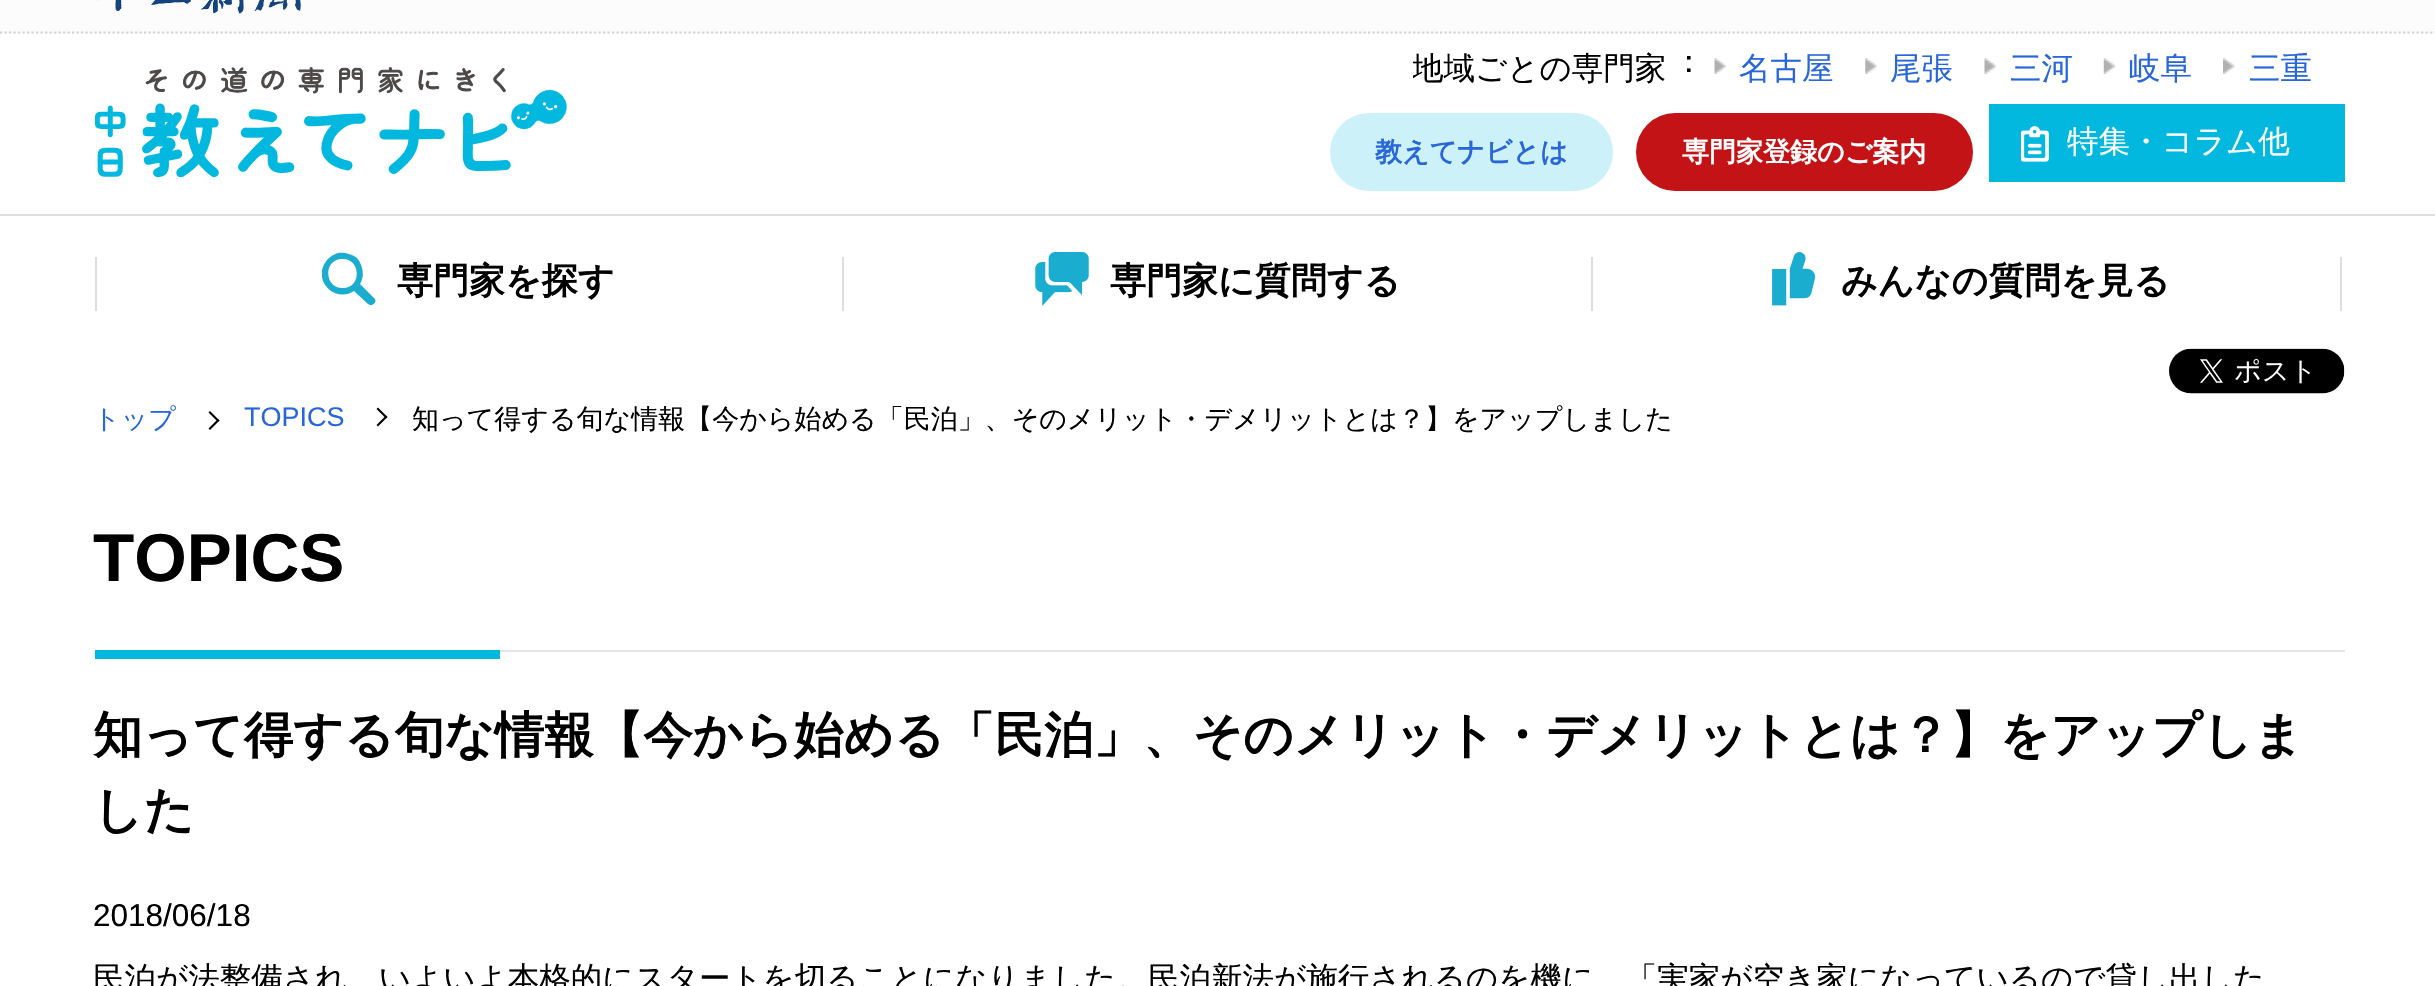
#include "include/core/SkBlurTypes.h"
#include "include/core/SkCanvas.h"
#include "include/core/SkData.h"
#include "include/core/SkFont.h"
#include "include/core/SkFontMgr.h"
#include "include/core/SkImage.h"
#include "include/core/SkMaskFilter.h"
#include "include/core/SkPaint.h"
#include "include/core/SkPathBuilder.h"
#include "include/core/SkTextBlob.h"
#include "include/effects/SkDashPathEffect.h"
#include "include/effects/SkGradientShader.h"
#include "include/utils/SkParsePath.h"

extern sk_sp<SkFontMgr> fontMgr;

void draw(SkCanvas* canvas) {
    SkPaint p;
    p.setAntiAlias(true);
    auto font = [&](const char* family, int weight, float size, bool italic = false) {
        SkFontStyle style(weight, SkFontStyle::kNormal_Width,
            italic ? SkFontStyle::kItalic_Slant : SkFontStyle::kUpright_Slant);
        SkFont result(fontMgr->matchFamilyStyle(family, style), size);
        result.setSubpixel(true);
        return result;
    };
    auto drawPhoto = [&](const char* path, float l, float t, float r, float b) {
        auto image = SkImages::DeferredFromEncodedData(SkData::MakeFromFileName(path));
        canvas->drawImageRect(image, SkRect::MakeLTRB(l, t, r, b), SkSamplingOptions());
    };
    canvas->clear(0xFFFFFFFF);
    p.setColor(0xFFFCFCFC);
    canvas->drawRect(SkRect::MakeLTRB(0, 0, 2435, 34), p);
    p.setStyle(SkPaint::kStroke_Style);
    p.setStrokeWidth(2.2f);
    p.setColor(0xFFD2D2D2);
    p.setPathEffect(SkDashPathEffect::Make({{2.25f, 2.25f}}, 0));
    canvas->drawPath(SkPathBuilder().moveTo(0, 32.5f).lineTo(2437, 32.5f).detach(), p);
    p.setPathEffect(nullptr);
    drawPhoto("media/1.png", 97, 0, 301, 14);
    drawPhoto("media/2.png", 95, 67, 567, 178);
    canvas->save();
    canvas->clipRect(SkRect::MakeLTRB(1413, 50, 2345, 99));
    auto font1 = font("WenQuanYi Zen Hei", 500, 31.5f);
    p.setStyle(SkPaint::kFill_Style);
    p.setColor(0xFF000000);
    canvas->drawString("地域ごとの専門家", 1412, 79, font1, p);
    canvas->restore();
    canvas->drawString("：", 1673, 72, font1, p);
    drawPhoto("media/3.png", 1714, 58, 1726, 74);
    p.setColor(0xFF2967D9);
    canvas->drawString("名古屋", 1739, 79, font1, p);
    drawPhoto("media/4.png", 1865, 58, 1877, 74);
    canvas->drawString("尾張", 1890, 79, font1, p);
    drawPhoto("media/5.png", 1984, 58, 1996, 74);
    canvas->drawString("三河", 2010, 79, font1, p);
    drawPhoto("media/6.png", 2103, 58, 2115, 74);
    canvas->drawString("岐阜", 2129, 79, font1, p);
    drawPhoto("media/7.png", 2223, 58, 2235, 74);
    canvas->drawString("三重", 2249, 79, font1, p);
    p.setColor(0xFFCDF1F9);
    canvas->drawRoundRect(SkRect::MakeLTRB(1330, 113, 1613, 191), 39, 39, p);
    auto font2 = font("WenQuanYi Zen Hei", 700, 27);
    p.setColor(0xFF2967D9);
    canvas->drawString("教えてナビとは", 1375, 161, font2, p);
    p.setColor(0xFFC31316);
    canvas->drawRoundRect(SkRect::MakeLTRB(1636, 113, 1973, 191), 39, 39, p);
    p.setColor(0xFFFFFFFF);
    canvas->drawString("専門家登録のご案内", 1682, 161, font2, p);
    p.setColor(0xFF03B8DF);
    canvas->drawRect(SkRect::MakeLTRB(1989, 104, 2345, 182), p);
    drawPhoto("media/8.png", 2021, 126, 2049, 162);
    p.setColor(0xFFFFFFFF);
    canvas->drawString("特集・コラム他", 2067, 152, font1, p);
    p.setColor(0xFFDDDDDD);
    canvas->drawRect(SkRect::MakeLTRB(0, 214, 2435, 216), p);
    canvas->drawRect(SkRect::MakeLTRB(95, 257, 97, 311), p);
    canvas->save();
    canvas->clipRect(SkRect::MakeLTRB(322, 252, 376, 306));
    p.setColor(0xFF1BADD0);
    canvas->drawPath(SkPathBuilder(SkPathFillType::kEvenOdd).moveTo(368, 304).cubicTo(371, 307, 377, 303, 375, 299).lineTo(360, 284).cubicTo(365, 276, 363, 265, 357, 258).cubicTo(352, 254, 344, 252, 338, 253).cubicTo(332, 255, 328, 258, 325, 263).cubicTo(313, 282, 336, 303, 354, 291).close().moveTo(343, 288).cubicTo(324, 289, 323, 259, 342, 259).cubicTo(361, 258, 362, 288, 343, 288).close().detach(), p);
    canvas->restore();
    auto font3 = font("WenQuanYi Zen Hei", 700, 36);
    p.setColor(0xFF000000);
    canvas->drawString("専門家を探す", 397, 293, font3, p);
    p.setColor(0xFFDDDDDD);
    canvas->drawRect(SkRect::MakeLTRB(842, 257, 844, 311), p);
    drawPhoto("media/9.png", 1035, 252, 1089, 306);
    p.setColor(0xFF000000);
    canvas->drawString("専門家に質問する", 1110, 293, font3, p);
    p.setColor(0xFFDDDDDD);
    canvas->drawRect(SkRect::MakeLTRB(1591, 257, 1593, 311), p);
    drawPhoto("media/10.png", 1772, 252, 1816, 306);
    p.setColor(0xFF000000);
    canvas->drawString("みんなの質問を見る", 1841, 293, font3, p);
    p.setColor(0xFFDDDDDD);
    canvas->drawRect(SkRect::MakeLTRB(2340, 257, 2342, 311), p);
    drawPhoto("media/11.png", 2169, 348, 2345, 394);
    auto font4 = font("WenQuanYi Zen Hei", 500, 27);
    p.setColor(0xFF2967D9);
    canvas->drawString("トップ", 93, 428, font4, p);
    p.setColor(0xFF000000);
    canvas->drawPath(SkPathBuilder().moveTo(210, 411).lineTo(219.5f, 420.5f).lineTo(218, 422).lineTo(208.5f, 412.5f).close().detach(), p);
    canvas->drawPath(SkPathBuilder().moveTo(218, 419).lineTo(219.5f, 420.5f).lineTo(210, 430).lineTo(208.5f, 428.5f).close().detach(), p);
    auto font5 = font("Liberation Sans", 400, 27);
    p.setColor(0xFF2967D9);
    canvas->drawString("TOPICS", 244, 426, font5, p);
    p.setColor(0xFF000000);
    canvas->drawPath(SkPathBuilder().moveTo(378, 407.5f).lineTo(387.5f, 417).lineTo(386, 418.5f).lineTo(376.5f, 409).close().detach(), p);
    canvas->drawPath(SkPathBuilder().moveTo(386, 415.5f).lineTo(387.5f, 417).lineTo(378, 426.5f).lineTo(376.5f, 425).close().detach(), p);
    canvas->drawString("知って得する旬な情報【今から始める「民泊」、そのメリット・デメリットとは？】をアップしました", 412, 428, font4, p);
    auto font6 = font("Liberation Sans", 700, 67.5f);
    canvas->drawString("TOPICS", 93, 581, font6, p);
    p.setColor(0xFFE6E6E6);
    canvas->drawRect(SkRect::MakeLTRB(500, 650, 2345, 652), p);
    p.setColor(0xFF03B8DF);
    canvas->drawRect(SkRect::MakeLTRB(95, 650, 500, 659), p);
    auto font7 = font("WenQuanYi Zen Hei", 700, 49.5f);
    p.setColor(0xFF000000);
    canvas->drawString("知って得する旬な情報【今から始める「民泊」、そのメリット・デメリットとは？】をアップしま", 93, 752, font7, p);
    canvas->drawString("した", 93, 827, font7, p);
    auto font8 = font("Liberation Sans", 400, 31.5f);
    canvas->drawString("2018/06/18", 93, 926, font8, p);
    canvas->drawString("民泊が法整備され、いよいよ本格的にスタートを切ることになりました。民泊新法が施行されるのを機に、「実家が空き家になっているので貸し出した", 93, 989, font1, p);
}
